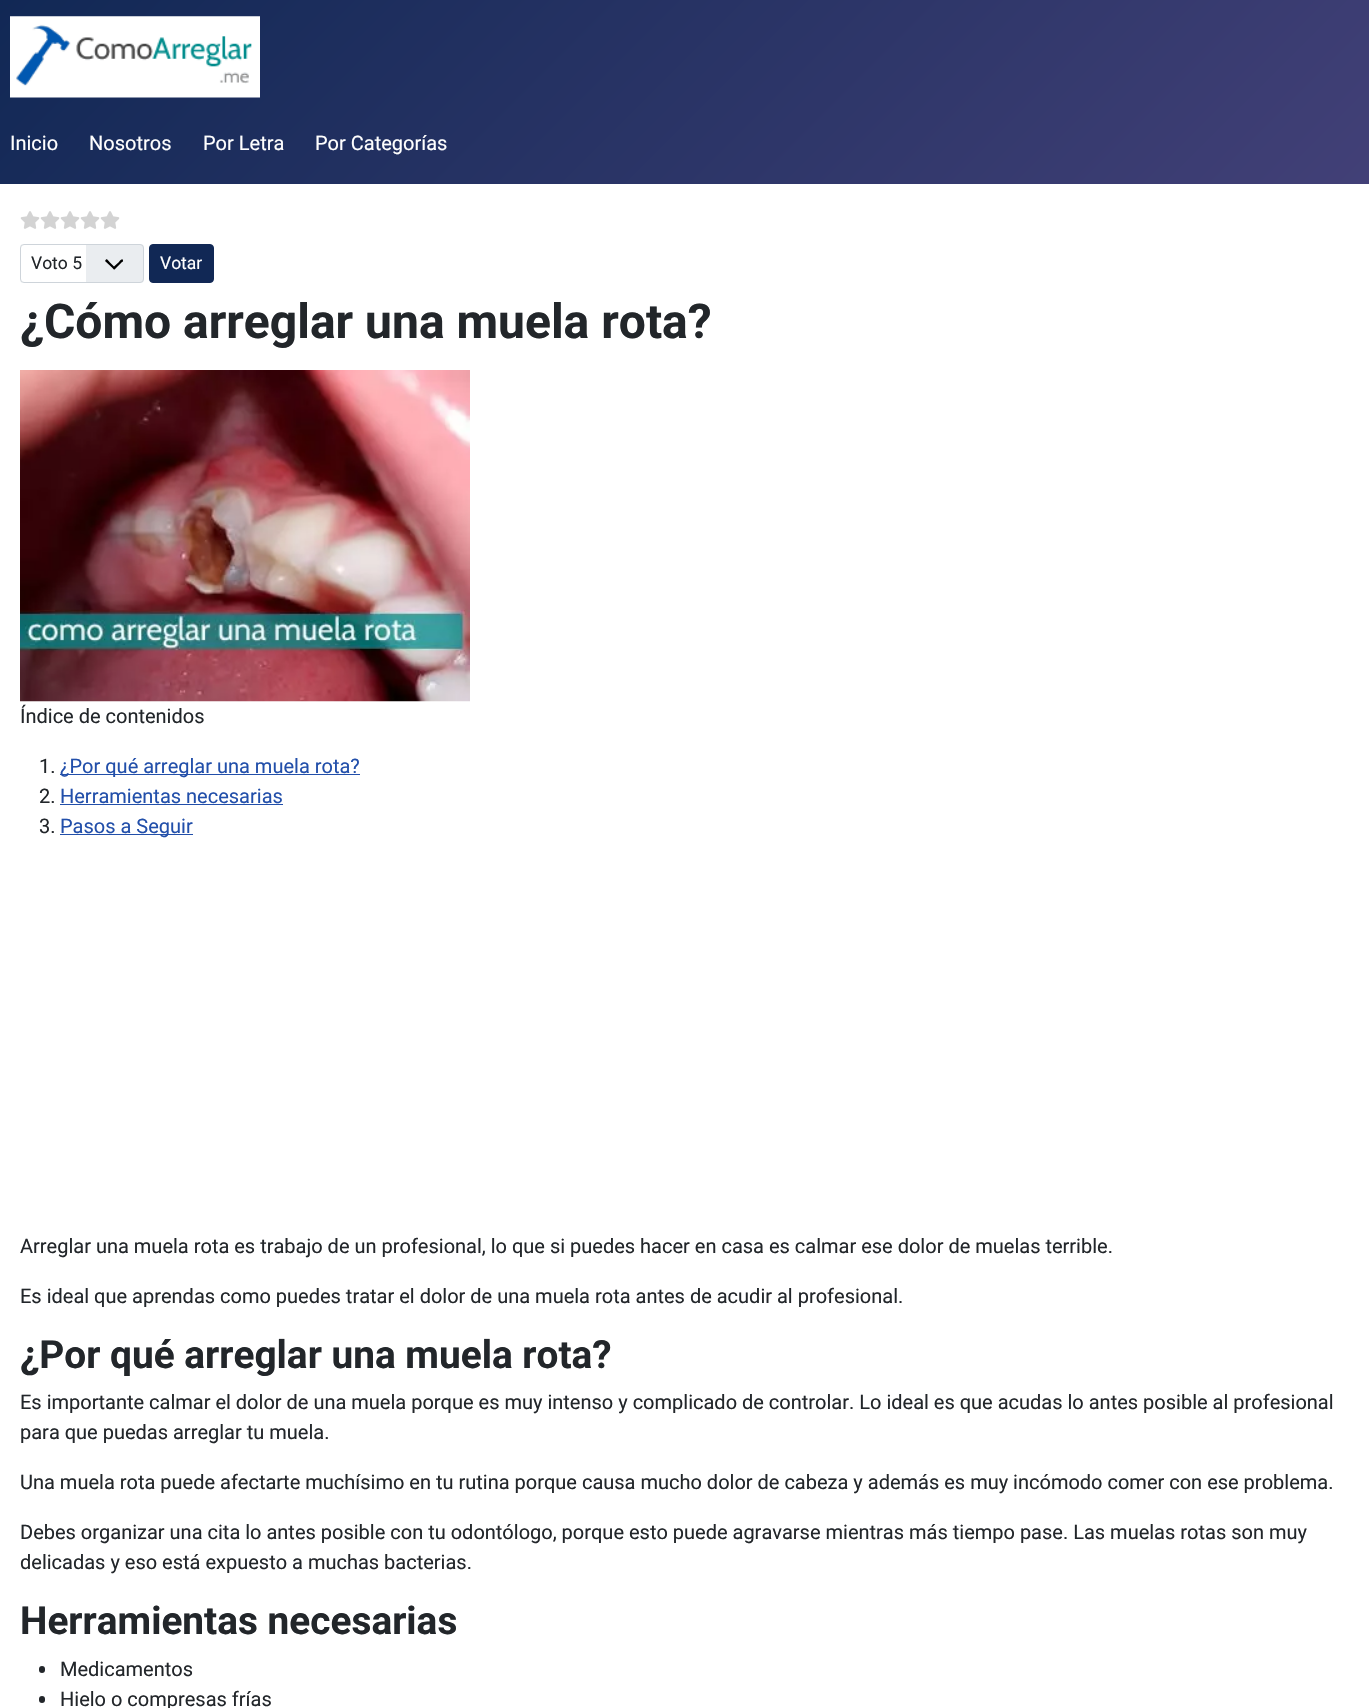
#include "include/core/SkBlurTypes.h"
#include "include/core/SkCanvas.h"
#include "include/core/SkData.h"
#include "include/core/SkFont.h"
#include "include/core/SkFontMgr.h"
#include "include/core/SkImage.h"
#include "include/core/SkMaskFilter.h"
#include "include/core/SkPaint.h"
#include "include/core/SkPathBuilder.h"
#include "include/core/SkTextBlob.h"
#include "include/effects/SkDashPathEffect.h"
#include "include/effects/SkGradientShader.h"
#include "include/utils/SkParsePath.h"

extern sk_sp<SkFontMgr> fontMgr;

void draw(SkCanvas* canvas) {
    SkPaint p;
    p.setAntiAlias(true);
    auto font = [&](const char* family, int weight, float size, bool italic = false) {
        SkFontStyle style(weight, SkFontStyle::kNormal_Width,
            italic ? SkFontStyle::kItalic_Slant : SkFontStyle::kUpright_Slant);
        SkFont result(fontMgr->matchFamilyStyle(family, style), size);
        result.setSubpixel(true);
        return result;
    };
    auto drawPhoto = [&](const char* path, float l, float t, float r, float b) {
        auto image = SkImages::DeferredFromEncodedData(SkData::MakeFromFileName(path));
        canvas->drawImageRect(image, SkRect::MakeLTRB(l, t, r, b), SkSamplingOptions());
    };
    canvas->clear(0xFFFFFFFF);
    {
        const SkColor colors[] = {0xFF112855, 0xFF424077};
        const float stops[] = {0, 1};
        const SkPoint ends[] = {{297, -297}, {1073, 480}};
        p.setShader(SkGradientShader::MakeLinear(ends, colors, stops, 2, SkTileMode::kClamp));
        p.setAlpha(255);
    }
    canvas->drawRect(SkRect::MakeLTRB(0, 0, 1369, 184), p);
    drawPhoto("media/1.png", 10, 16, 260, 98);
    auto font1 = font("Roboto", 400, 20);
    p.setShader(nullptr);
    p.setColor(0xFFFFFFFF);
    {
        const struct { const char* s; float x, y; } items[] = {
            {"Inicio", 10, 150},
            {"Nosotros", 89, 150},
            {"Por Letra", 203, 150},
            {"Por Categorías", 315, 150},
        };
        for (auto [s, x, y] : items) {
            canvas->drawString(s, x, y, font1, p);
        }
    }
    drawPhoto("media/2.png", 20, 211, 40, 229);
    drawPhoto("media/2.png", 40, 211, 60, 229);
    drawPhoto("media/2.png", 60, 211, 80, 229);
    drawPhoto("media/2.png", 80, 211, 100, 229);
    drawPhoto("media/2.png", 100, 211, 120, 229);
    p.setColor(0xFFEAEDF0);
    canvas->drawRoundRect(SkRect::MakeLTRB(20, 244, 144, 283), 4, 4, p);
    p.setColor(0xFF000000);
    canvas->drawPath(SkPathBuilder().moveTo(105, 261).lineTo(112.5f, 268).cubicTo(114.5f, 270, 114, 270, 116, 268).lineTo(121.5f, 262.5f).cubicTo(122, 262, 123.5f, 261.5f, 123, 260.5f).cubicTo(122.5f, 257, 119, 261.5f, 119, 262).lineTo(114, 266.5f).lineTo(109.5f, 262).cubicTo(109, 261.5f, 107, 258.5f, 106, 259.5f).close().detach(), p);
    p.setColor(0xFFFFFFFF);
    canvas->drawPath(SkPathBuilder().moveTo(24, 244).lineTo(86, 244).lineTo(86, 283).lineTo(24, 283).cubicTo(22, 283, 20, 281, 20, 279).lineTo(20, 248).cubicTo(20, 246, 22, 244, 24, 244).close().detach(), p);
    p.setStyle(SkPaint::kStroke_Style);
    p.setStrokeWidth(1);
    p.setColor(0xFFCED4DA);
    canvas->drawRoundRect(SkRect::MakeLTRB(20.5f, 244.5f, 143.5f, 282.5f), 3.5f, 3.5f, p);
    auto font2 = font("Roboto", 400, 17.5f);
    p.setStyle(SkPaint::kFill_Style);
    p.setColor(0xFF22262A);
    canvas->drawString("Voto 5", 31, 269, font2, p);
    p.setColor(0xFF112855);
    canvas->drawRoundRect(SkRect::MakeLTRB(149.5f, 244.5f, 213.5f, 282.5f), 3.5f, 3.5f, p);
    p.setStyle(SkPaint::kStroke_Style);
    canvas->drawRoundRect(SkRect::MakeLTRB(149.5f, 244.5f, 213.5f, 282.5f), 3.5f, 3.5f, p);
    p.setStyle(SkPaint::kFill_Style);
    p.setColor(0xFFFFFFFF);
    canvas->drawString("Votar", 160, 269, font2, p);
    auto font3 = font("Roboto", 700, 48);
    p.setColor(0xFF22262A);
    canvas->drawString("¿Cómo arreglar una muela rota?", 20, 338, font3, p);
    drawPhoto("media/3.png", 20, 370, 470, 702);
    canvas->drawString("Índice de contenidos", 20, 723, font1, p);
    canvas->drawString("1.", 39, 773, font1, p);
    p.setColor(0xFF224FAA);
    canvas->drawRect(SkRect::MakeLTRB(60, 774, 360, 775), p);
    canvas->drawString("¿Por qué arreglar una muela rota?", 60, 773, font1, p);
    p.setColor(0xFF22262A);
    canvas->drawString("2.", 39, 803, font1, p);
    p.setColor(0xFF224FAA);
    canvas->drawString("Herramientas necesarias", 60, 803, font1, p);
    canvas->drawRect(SkRect::MakeLTRB(60, 804, 283, 805), p);
    p.setColor(0xFF22262A);
    canvas->drawString("3.", 39, 833, font1, p);
    p.setColor(0xFF224FAA);
    canvas->drawRect(SkRect::MakeLTRB(60, 834, 193, 835), p);
    canvas->drawString("Pasos a Seguir", 60, 833, font1, p);
    p.setColor(0xFF22262A);
    canvas->drawString("Arreglar una muela rota es trabajo de un profesional, lo que si puedes hacer en casa es calmar ese dolor de muelas terrible.", 20, 1253, font1, p);
    canvas->drawString("Es ideal que aprendas como puedes tratar el dolor de una muela rota antes de acudir al profesional.", 20, 1303, font1, p);
    auto font4 = font("Roboto", 700, 38.8f);
    canvas->drawString("¿Por qué arreglar una muela rota?", 20, 1368, font4, p);
    {
        const struct { const char* s; float x, y; } items[] = {
            {"Es importante calmar el dolor de una muela porque es muy intenso y complicado de controlar. Lo ideal es que acudas lo antes posible al profesional", 20, 1409},
            {"para que puedas arreglar tu muela.", 20, 1439},
            {"Una muela rota puede afectarte muchísimo en tu rutina porque causa mucho dolor de cabeza y además es muy incómodo comer con ese problema.", 20, 1489},
            {"Debes organizar una cita lo antes posible con tu odontólogo, porque esto puede agravarse mientras más tiempo pase. Las muelas rotas son muy", 20, 1539},
            {"delicadas y eso está expuesto a muchas bacterias.", 20, 1569},
        };
        for (auto [s, x, y] : items) {
            canvas->drawString(s, x, y, font1, p);
        }
    }
    canvas->drawString("Herramientas necesarias", 20, 1634, font4, p);
    canvas->drawRoundRect(SkRect::MakeLTRB(39, 1666, 45, 1673), 3, 3, p);
    canvas->drawString("Medicamentos", 60, 1676, font1, p);
    canvas->drawRoundRect(SkRect::MakeLTRB(39, 1696, 45, 1703), 3, 3, p);
    canvas->drawString("Hielo o compresas frías", 60, 1706, font1, p);
}
